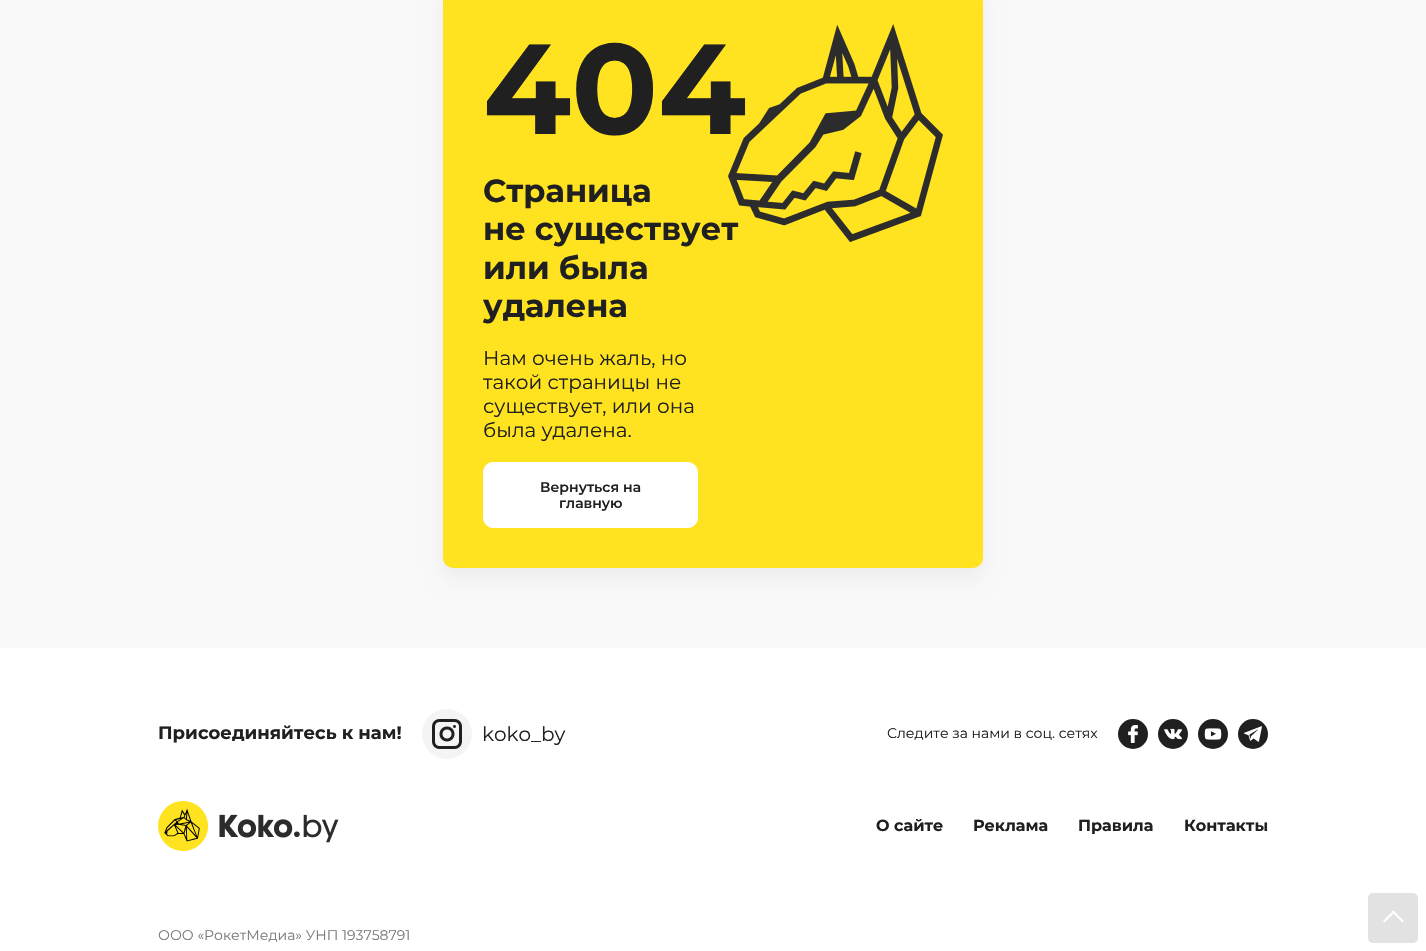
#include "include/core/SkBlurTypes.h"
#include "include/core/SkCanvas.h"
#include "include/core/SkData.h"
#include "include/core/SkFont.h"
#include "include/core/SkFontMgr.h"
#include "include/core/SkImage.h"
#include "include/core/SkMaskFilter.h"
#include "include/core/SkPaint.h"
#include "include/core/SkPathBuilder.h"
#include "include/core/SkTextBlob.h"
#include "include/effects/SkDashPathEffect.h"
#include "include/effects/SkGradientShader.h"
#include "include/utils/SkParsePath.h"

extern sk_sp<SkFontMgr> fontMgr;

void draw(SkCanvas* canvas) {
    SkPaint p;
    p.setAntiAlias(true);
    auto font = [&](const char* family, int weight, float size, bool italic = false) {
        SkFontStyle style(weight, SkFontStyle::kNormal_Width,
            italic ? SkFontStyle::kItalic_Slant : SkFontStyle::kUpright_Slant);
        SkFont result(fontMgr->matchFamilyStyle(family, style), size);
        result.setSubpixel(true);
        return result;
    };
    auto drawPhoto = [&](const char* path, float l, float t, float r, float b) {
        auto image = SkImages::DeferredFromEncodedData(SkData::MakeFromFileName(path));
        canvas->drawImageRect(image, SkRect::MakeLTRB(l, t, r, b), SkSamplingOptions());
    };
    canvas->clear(0xFFF9F9F9);
    p.setColor(0x0D000000);
    p.setMaskFilter(SkMaskFilter::MakeBlur(kNormal_SkBlurStyle, 10));
    canvas->drawRoundRect(SkRect::MakeLTRB(443, -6, 983, 578), 10, 10, p);
    p.setMaskFilter(nullptr);
    p.setColor(0xFFFFE320);
    canvas->drawRoundRect(SkRect::MakeLTRB(443, -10, 983, 568), 10, 10, p);
    auto font1 = font("Montserrat", 700, 128);
    p.setColor(0xFF202020);
    canvas->drawString("404", 483, 134, font1, p);
    auto font2 = font("Montserrat", 700, 32);
    {
        const struct { const char* s; float x, y; } items[] = {
            {"Страница", 483, 202},
            {"не существует", 483, 240},
            {"или была", 483, 279},
            {"удалена", 483, 317},
        };
        for (auto [s, x, y] : items) {
            canvas->drawString(s, x, y, font2, p);
        }
    }
    auto font3 = font("Montserrat", 400, 20);
    {
        const struct { const char* s; float x, y; } items[] = {
            {"Нам очень жаль, но", 483, 365},
            {"такой страницы не", 483, 389},
            {"существует, или она", 483, 413},
            {"была удалена.", 483, 437},
        };
        for (auto [s, x, y] : items) {
            canvas->drawString(s, x, y, font3, p);
        }
    }
    p.setColor(0xFFFFFFFF);
    canvas->drawRoundRect(SkRect::MakeLTRB(483.5f, 462.5f, 697.5f, 527.5f), 9.5f, 9.5f, p);
    p.setStyle(SkPaint::kStroke_Style);
    p.setStrokeWidth(1);
    canvas->drawRoundRect(SkRect::MakeLTRB(483.5f, 462.5f, 697.5f, 527.5f), 9.5f, 9.5f, p);
    auto font4 = font("Montserrat", 600, 14);
    p.setStyle(SkPaint::kFill_Style);
    p.setColor(0xFF202020);
    canvas->drawString("Вернуться на", 540, 492, font4, p);
    canvas->drawString("главную", 559, 508, font4, p);
    drawPhoto("media/1.png", 728, 24, 943, 242);
    p.setColor(0xFFFFFFFF);
    canvas->drawRect(SkRect::MakeLTRB(0, 648, 1426, 951), p);
    auto font5 = font("Montserrat", 700, 18);
    p.setColor(0xFF202020);
    canvas->drawString("Присоединяйтесь к нам!", 158, 739, font5, p);
    p.setColor(0xFFF4F4F4);
    canvas->drawCircle(447, 734, 25, p);
    drawPhoto("media/2.png", 432, 719, 462, 749);
    p.setColor(0xFF202020);
    canvas->drawString("koko_by", 482, 741, font3, p);
    auto font6 = font("Montserrat", 400, 14);
    canvas->drawString("Следите за нами в соц. сетях", 887, 738, font6, p);
    canvas->drawCircle(1133, 734, 15, p);
    drawPhoto("media/3.png", 1128, 725, 1138, 743);
    canvas->drawCircle(1173, 734, 15, p);
    drawPhoto("media/4.png", 1164, 728, 1182, 740);
    canvas->drawCircle(1213, 734, 15, p);
    drawPhoto("media/5.png", 1204, 728, 1222, 740);
    canvas->drawCircle(1253, 734, 15, p);
    drawPhoto("media/6.png", 1244, 726, 1262, 742);
    drawPhoto("media/7.png", 158, 801, 339, 851);
    auto font7 = font("Montserrat", 700, 16);
    {
        const struct { const char* s; float x, y; } items[] = {
            {"О сайте", 876, 831},
            {"Реклама", 973, 831},
            {"Правила", 1078, 831},
            {"Контакты", 1184, 831},
        };
        for (auto [s, x, y] : items) {
            canvas->drawString(s, x, y, font7, p);
        }
    }
    p.setColor(0xFF7A7A7A);
    canvas->drawString("ООО «РокетМедиа» УНП 193758791", 158, 940, font6, p);
    p.setColor(0xFFE2E2E2);
    canvas->drawRoundRect(SkRect::MakeLTRB(1368, 893, 1418, 943), 5, 5, p);
    p.setColor(0xFFFFFFFF);
    canvas->drawPath(SkPathBuilder().moveTo(1383, 921).lineTo(1393.5f, 910.5f).lineTo(1395, 912).lineTo(1384.5f, 922.5f).close().detach(), p);
    canvas->drawPath(SkPathBuilder().moveTo(1392, 912).lineTo(1393.5f, 910.5f).lineTo(1404, 921).lineTo(1402.5f, 922.5f).close().detach(), p);
}
